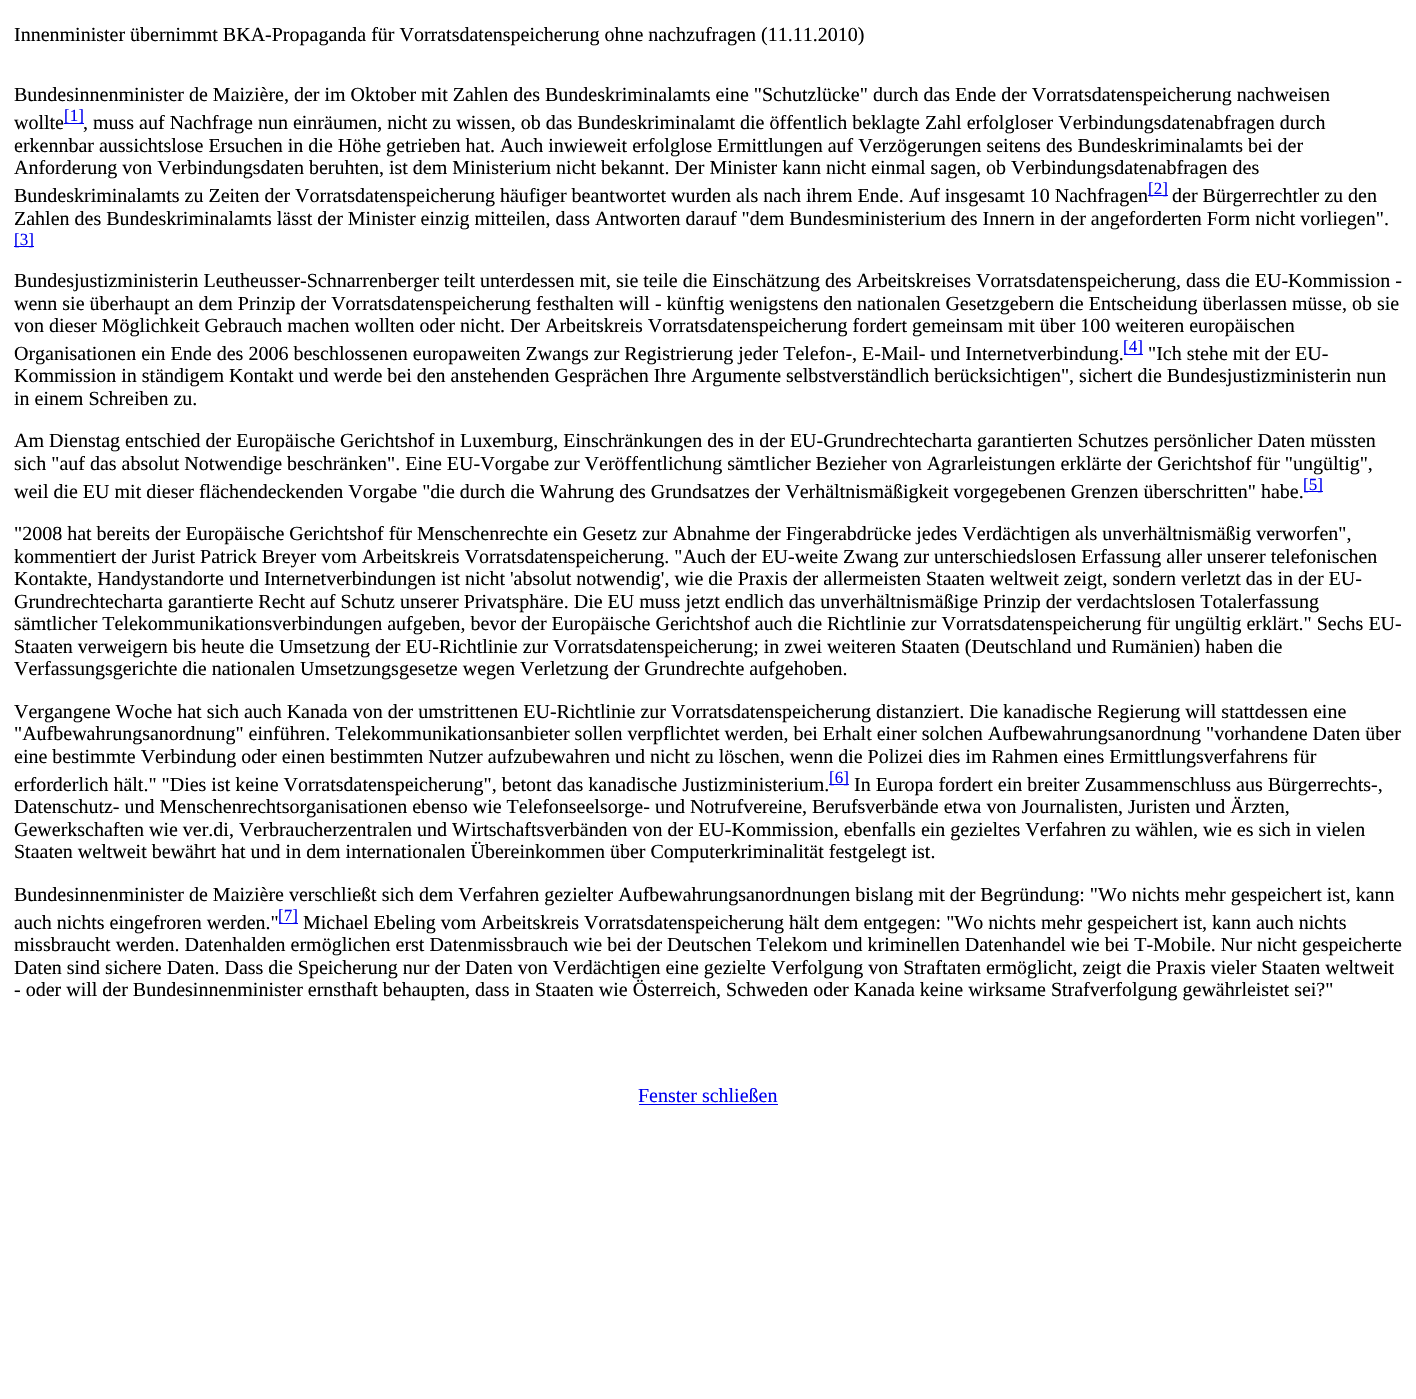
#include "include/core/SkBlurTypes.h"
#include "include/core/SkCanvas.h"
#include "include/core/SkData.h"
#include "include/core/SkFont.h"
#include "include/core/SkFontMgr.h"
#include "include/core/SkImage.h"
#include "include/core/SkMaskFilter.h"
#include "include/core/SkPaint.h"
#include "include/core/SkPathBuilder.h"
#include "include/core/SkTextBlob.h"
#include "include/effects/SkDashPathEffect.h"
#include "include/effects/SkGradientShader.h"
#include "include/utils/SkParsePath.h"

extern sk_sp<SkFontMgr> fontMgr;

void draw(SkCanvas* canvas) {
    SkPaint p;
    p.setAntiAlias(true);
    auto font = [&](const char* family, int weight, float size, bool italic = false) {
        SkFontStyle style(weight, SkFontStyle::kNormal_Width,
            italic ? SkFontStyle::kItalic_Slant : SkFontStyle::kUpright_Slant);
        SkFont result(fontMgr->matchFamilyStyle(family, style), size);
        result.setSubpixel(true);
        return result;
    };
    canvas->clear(0xFFFFFFFF);
    auto font1 = font("Liberation Serif", 400, 20);
    p.setColor(0xFF000000);
    {
        const struct { const char* s; float x, y; } items[] = {
            {"Innenminister übernimmt BKA-Propaganda für Vorratsdatenspeicherung ohne nachzufragen (11.11.2010)", 14, 41},
            {"Bundesinnenminister de Maizière, der im Oktober mit Zahlen des Bundeskriminalamts eine \"Schutzlücke\" durch das Ende der Vorratsdatenspeicherung nachweisen", 14, 101},
            {"wollte", 14, 129},
        };
        for (auto [s, x, y] : items) {
            canvas->drawString(s, x, y, font1, p);
        }
    }
    p.setColor(0xFF0000EE);
    canvas->drawRect(SkRect::MakeLTRB(64, 123, 84, 124), p);
    auto font2 = font("Liberation Serif", 400, 17);
    canvas->drawString("[1]", 64, 121, font2, p);
    p.setColor(0xFF000000);
    {
        const struct { const char* s; float x, y; } items[] = {
            {", muss auf Nachfrage nun einräumen, nicht zu wissen, ob das Bundeskriminalamt die öffentlich beklagte Zahl erfolgloser Verbindungsdatenabfragen durch", 83, 129},
            {"erkennbar aussichtslose Ersuchen in die Höhe getrieben hat. Auch inwieweit erfolglose Ermittlungen auf Verzögerungen seitens des Bundeskriminalamts bei der", 14, 152},
            {"Anforderung von Verbindungsdaten beruhten, ist dem Ministerium nicht bekannt. Der Minister kann nicht einmal sagen, ob Verbindungsdatenabfragen des", 14, 174},
            {"Bundeskriminalamts zu Zeiten der Vorratsdatenspeicherung häufiger beantwortet wurden als nach ihrem Ende. Auf insgesamt 10 Nachfragen", 14, 202},
        };
        for (auto [s, x, y] : items) {
            canvas->drawString(s, x, y, font1, p);
        }
    }
    p.setColor(0xFF0000EE);
    canvas->drawRect(SkRect::MakeLTRB(1148, 195, 1168, 196), p);
    canvas->drawString("[2]", 1148, 194, font2, p);
    p.setColor(0xFF000000);
    canvas->drawString("der Bürgerrechtler zu den", 1172, 202, font1, p);
    canvas->drawString("Zahlen des Bundeskriminalamts lässt der Minister einzig mitteilen, dass Antworten darauf \"dem Bundesministerium des Innern in der angeforderten Form nicht vorliegen\".", 14, 225, font1, p);
    p.setColor(0xFF0000EE);
    canvas->drawRect(SkRect::MakeLTRB(14, 246, 34, 247), p);
    canvas->drawString("[3]", 14, 245, font2, p);
    p.setColor(0xFF000000);
    {
        const struct { const char* s; float x, y; } items[] = {
            {"Bundesjustizministerin Leutheusser-Schnarrenberger teilt unterdessen mit, sie teile die Einschätzung des Arbeitskreises Vorratsdatenspeicherung, dass die EU-Kommission -", 14, 287},
            {"wenn sie überhaupt an dem Prinzip der Vorratsdatenspeicherung festhalten will - künftig wenigstens den nationalen Gesetzgebern die Entscheidung überlassen müsse, ob sie", 14, 310},
            {"von dieser Möglichkeit Gebrauch machen wollten oder nicht. Der Arbeitskreis Vorratsdatenspeicherung fordert gemeinsam mit über 100 weiteren europäischen", 14, 332},
            {"Organisationen ein Ende des 2006 beschlossenen europaweiten Zwangs zur Registrierung jeder Telefon-, E-Mail- und Internetverbindung.", 14, 360},
        };
        for (auto [s, x, y] : items) {
            canvas->drawString(s, x, y, font1, p);
        }
    }
    p.setColor(0xFF0000EE);
    canvas->drawRect(SkRect::MakeLTRB(1124, 354, 1143, 355), p);
    canvas->drawString("[4]", 1123, 352, font2, p);
    p.setColor(0xFF000000);
    {
        const struct { const char* s; float x, y; } items[] = {
            {"\"Ich stehe mit der EU-", 1148, 360},
            {"Kommission in ständigem Kontakt und werde bei den anstehenden Gesprächen Ihre Argumente selbstverständlich berücksichtigen\", sichert die Bundesjustizministerin nun", 14, 382},
            {"in einem Schreiben zu.", 14, 405},
            {"Am Dienstag entschied der Europäische Gerichtshof in Luxemburg, Einschränkungen des in der EU-Grundrechtecharta garantierten Schutzes persönlicher Daten müssten", 14, 447},
            {"sich \"auf das absolut Notwendige beschränken\". Eine EU-Vorgabe zur Veröffentlichung sämtlicher Bezieher von Agrarleistungen erklärte der Gerichtshof für \"ungültig\",", 14, 470},
            {"weil die EU mit dieser flächendeckenden Vorgabe \"die durch die Wahrung des Grundsatzes der Verhältnismäßigkeit vorgegebenen Grenzen überschritten\" habe.", 14, 498},
        };
        for (auto [s, x, y] : items) {
            canvas->drawString(s, x, y, font1, p);
        }
    }
    p.setColor(0xFF0000EE);
    canvas->drawRect(SkRect::MakeLTRB(1304, 491, 1323, 492), p);
    canvas->drawString("[5]", 1303, 490, font2, p);
    p.setColor(0xFF000000);
    {
        const struct { const char* s; float x, y; } items[] = {
            {"\"2008 hat bereits der Europäische Gerichtshof für Menschenrechte ein Gesetz zur Abnahme der Fingerabdrücke jedes Verdächtigen als unverhältnismäßig verworfen\",", 14, 540},
            {"kommentiert der Jurist Patrick Breyer vom Arbeitskreis Vorratsdatenspeicherung. \"Auch der EU-weite Zwang zur unterschiedslosen Erfassung aller unserer telefonischen", 14, 563},
            {"Kontakte, Handystandorte und Internetverbindungen ist nicht 'absolut notwendig', wie die Praxis der allermeisten Staaten weltweit zeigt, sondern verletzt das in der EU-", 14, 585},
            {"Grundrechtecharta garantierte Recht auf Schutz unserer Privatsphäre. Die EU muss jetzt endlich das unverhältnismäßige Prinzip der verdachtslosen Totalerfassung", 14, 608},
            {"sämtlicher Telekommunikationsverbindungen aufgeben, bevor der Europäische Gerichtshof auch die Richtlinie zur Vorratsdatenspeicherung für ungültig erklärt.\" Sechs EU-", 14, 630},
            {"Staaten verweigern bis heute die Umsetzung der EU-Richtlinie zur Vorratsdatenspeicherung; in zwei weiteren Staaten (Deutschland und Rumänien) haben die", 14, 653},
            {"Verfassungsgerichte die nationalen Umsetzungsgesetze wegen Verletzung der Grundrechte aufgehoben.", 14, 675},
            {"Vergangene Woche hat sich auch Kanada von der umstrittenen EU-Richtlinie zur Vorratsdatenspeicherung distanziert. Die kanadische Regierung will stattdessen eine", 14, 718},
            {"\"Aufbewahrungsanordnung\" einführen. Telekommunikationsanbieter sollen verpflichtet werden, bei Erhalt einer solchen Aufbewahrungsanordnung \"vorhandene Daten über", 14, 740},
            {"eine bestimmte Verbindung oder einen bestimmten Nutzer aufzubewahren und nicht zu löschen, wenn die Polizei dies im Rahmen eines Ermittlungsverfahrens für", 14, 763},
            {"erforderlich hält.\" \"Dies ist keine Vorratsdatenspeicherung\", betont das kanadische Justizministerium.", 14, 791},
        };
        for (auto [s, x, y] : items) {
            canvas->drawString(s, x, y, font1, p);
        }
    }
    p.setColor(0xFF0000EE);
    canvas->drawRect(SkRect::MakeLTRB(829, 784, 849, 785), p);
    canvas->drawString("[6]", 829, 783, font2, p);
    p.setColor(0xFF000000);
    {
        const struct { const char* s; float x, y; } items[] = {
            {"In Europa fordert ein breiter Zusammenschluss aus Bürgerrechts-,", 854, 791},
            {"Datenschutz- und Menschenrechtsorganisationen ebenso wie Telefonseelsorge- und Notrufvereine, Berufsverbände etwa von Journalisten, Juristen und Ärzten,", 14, 813},
            {"Gewerkschaften wie ver.di, Verbraucherzentralen und Wirtschaftsverbänden von der EU-Kommission, ebenfalls ein gezieltes Verfahren zu wählen, wie es sich in vielen", 14, 836},
            {"Staaten weltweit bewährt hat und in dem internationalen Übereinkommen über Computerkriminalität festgelegt ist.", 14, 858},
            {"Bundesinnenminister de Maizière verschließt sich dem Verfahren gezielter Aufbewahrungsanordnungen bislang mit der Begründung: \"Wo nichts mehr gespeichert ist, kann", 14, 901},
            {"auch nichts eingefroren werden.\"", 14, 929},
        };
        for (auto [s, x, y] : items) {
            canvas->drawString(s, x, y, font1, p);
        }
    }
    p.setColor(0xFF0000EE);
    canvas->drawRect(SkRect::MakeLTRB(279, 923, 298, 924), p);
    canvas->drawString("[7]", 278, 921, font2, p);
    p.setColor(0xFF000000);
    {
        const struct { const char* s; float x, y; } items[] = {
            {"Michael Ebeling vom Arbeitskreis Vorratsdatenspeicherung hält dem entgegen: \"Wo nichts mehr gespeichert ist, kann auch nichts", 303, 929},
            {"missbraucht werden. Datenhalden ermöglichen erst Datenmissbrauch wie bei der Deutschen Telekom und kriminellen Datenhandel wie bei T-Mobile. Nur nicht gespeicherte", 14, 951},
            {"Daten sind sichere Daten. Dass die Speicherung nur der Daten von Verdächtigen eine gezielte Verfolgung von Straftaten ermöglicht, zeigt die Praxis vieler Staaten weltweit", 14, 974},
            {"- oder will der Bundesinnenminister ernsthaft behaupten, dass in Staaten wie Österreich, Schweden oder Kanada keine wirksame Strafverfolgung gewährleistet sei?\"", 14, 996},
        };
        for (auto [s, x, y] : items) {
            canvas->drawString(s, x, y, font1, p);
        }
    }
    p.setColor(0xFF0000EE);
    canvas->drawString("Fenster schließen", 638, 1102, font1, p);
    canvas->drawRect(SkRect::MakeLTRB(639, 1104, 778, 1105), p);
}
